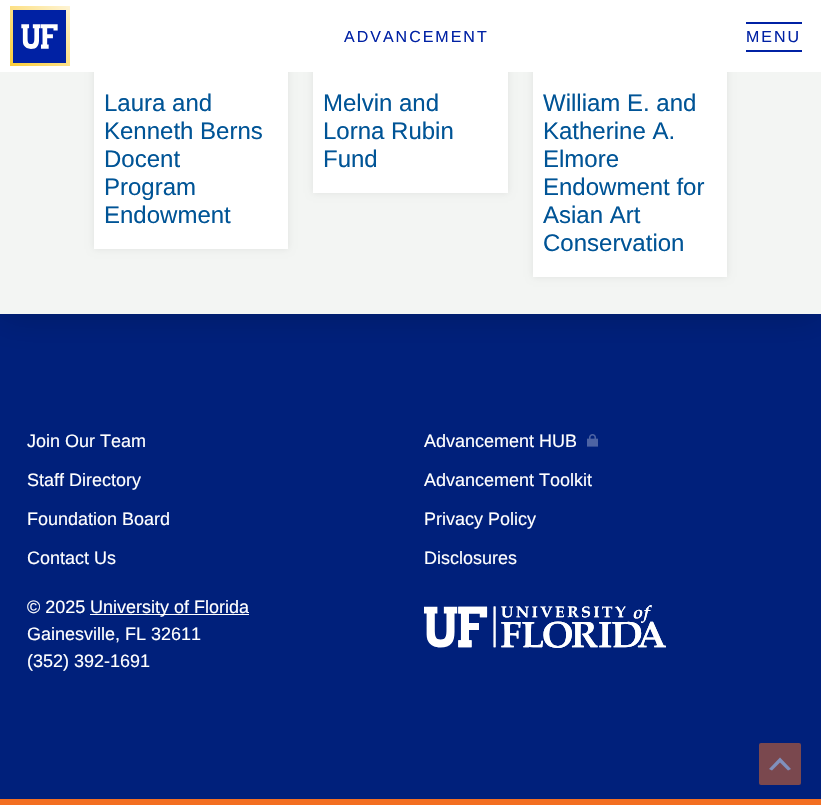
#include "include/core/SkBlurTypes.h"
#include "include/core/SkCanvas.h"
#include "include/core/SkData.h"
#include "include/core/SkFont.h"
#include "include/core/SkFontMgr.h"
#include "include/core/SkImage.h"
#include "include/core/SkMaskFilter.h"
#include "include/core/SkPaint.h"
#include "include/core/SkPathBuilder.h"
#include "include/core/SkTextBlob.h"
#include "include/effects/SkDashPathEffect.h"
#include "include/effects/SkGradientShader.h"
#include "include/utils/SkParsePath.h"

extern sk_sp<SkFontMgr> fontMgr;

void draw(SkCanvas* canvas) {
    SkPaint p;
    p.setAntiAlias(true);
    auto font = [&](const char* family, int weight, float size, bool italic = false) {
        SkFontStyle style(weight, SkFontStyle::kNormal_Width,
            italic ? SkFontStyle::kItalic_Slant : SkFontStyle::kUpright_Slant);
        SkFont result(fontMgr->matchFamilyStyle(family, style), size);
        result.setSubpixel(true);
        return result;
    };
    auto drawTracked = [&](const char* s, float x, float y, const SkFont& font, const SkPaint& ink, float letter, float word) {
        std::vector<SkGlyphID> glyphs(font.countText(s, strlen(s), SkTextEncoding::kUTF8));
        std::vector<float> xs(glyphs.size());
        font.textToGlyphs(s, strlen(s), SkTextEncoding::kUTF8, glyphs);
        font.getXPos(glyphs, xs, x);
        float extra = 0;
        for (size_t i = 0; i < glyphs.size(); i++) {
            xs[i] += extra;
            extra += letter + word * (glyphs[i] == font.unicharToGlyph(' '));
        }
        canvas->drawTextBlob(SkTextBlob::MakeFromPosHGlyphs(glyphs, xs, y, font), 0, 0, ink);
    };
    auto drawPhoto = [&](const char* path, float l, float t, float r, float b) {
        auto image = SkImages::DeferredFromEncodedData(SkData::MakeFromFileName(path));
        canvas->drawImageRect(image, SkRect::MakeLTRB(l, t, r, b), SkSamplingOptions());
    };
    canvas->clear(0xFF00207B);
    p.setColor(0x33000000);
    p.setMaskFilter(SkMaskFilter::MakeBlur(kNormal_SkBlurStyle, 18));
    canvas->drawRect(SkRect::MakeLTRB(0, -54, 821, 314), p);
    p.setMaskFilter(nullptr);
    p.setColor(0xFFF3F5F3);
    canvas->drawRect(SkRect::MakeLTRB(0, 72, 821, 314), p);
    p.setColor(0x14000000);
    p.setMaskFilter(SkMaskFilter::MakeBlur(kNormal_SkBlurStyle, 3.5f));
    canvas->drawRect(SkRect::MakeLTRB(94, -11, 288, 249), p);
    p.setMaskFilter(nullptr);
    p.setMaskFilter(SkMaskFilter::MakeBlur(kNormal_SkBlurStyle, 3.5f));
    canvas->drawRect(SkRect::MakeLTRB(313, -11, 508, 193), p);
    p.setMaskFilter(nullptr);
    p.setMaskFilter(SkMaskFilter::MakeBlur(kNormal_SkBlurStyle, 3.5f));
    canvas->drawRect(SkRect::MakeLTRB(533, -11, 727, 277), p);
    p.setMaskFilter(nullptr);
    p.setColor(0xFFFFFFFF);
    canvas->drawRect(SkRect::MakeLTRB(0, 0, 821, 72), p);
    {
        const SkColor colors[] = {0xFFFBCD38, 0xFFFEF4D5};
        const float stops[] = {0, 1};
        const SkPoint ends[] = {{10, 66}, {70, 6}};
        p.setShader(SkGradientShader::MakeLinear(ends, colors, stops, 2, SkTileMode::kClamp));
        p.setAlpha(255);
    }
    canvas->drawRect(SkRect::MakeLTRB(10, 6, 70, 66), p);
    p.setShader(nullptr);
    p.setColor(0xFFFFFFFF);
    canvas->drawRect(SkRect::MakeLTRB(21, 24, 58, 49), p);
    drawPhoto("media/1.png", 13, 10, 66, 63);
    auto font1 = font("Liberation Sans", 400, 16);
    p.setColor(0xFF0021A4);
    drawTracked("ADVANCEMENT", 344, 42, font1, p, 2, 0);
    canvas->drawRect(SkRect::MakeLTRB(746, 22, 802, 24), p);
    drawTracked("MENU", 746, 42, font1, p, 2, 0);
    canvas->drawRect(SkRect::MakeLTRB(746, 50, 802, 52), p);
    p.setColor(0xFFFFFFFF);
    canvas->drawRect(SkRect::MakeLTRB(94, 72, 288, 249), p);
    auto font2 = font("Liberation Sans", 400, 24);
    p.setColor(0xFF005496);
    {
        const struct { const char* s; float x, y; } items[] = {
            {"Laura and", 104, 111},
            {"Kenneth Berns", 104, 139},
            {"Docent", 104, 167},
            {"Program", 104, 195},
            {"Endowment", 104, 223},
        };
        for (auto [s, x, y] : items) {
            canvas->drawString(s, x, y, font2, p);
        }
    }
    p.setColor(0xFFFFFFFF);
    canvas->drawRect(SkRect::MakeLTRB(313, 72, 508, 193), p);
    p.setColor(0xFF005496);
    {
        const struct { const char* s; float x, y; } items[] = {
            {"Melvin and", 323, 111},
            {"Lorna Rubin", 323, 139},
            {"Fund", 323, 167},
        };
        for (auto [s, x, y] : items) {
            canvas->drawString(s, x, y, font2, p);
        }
    }
    p.setColor(0xFFFFFFFF);
    canvas->drawRect(SkRect::MakeLTRB(533, 72, 727, 277), p);
    p.setColor(0xFF005496);
    {
        const struct { const char* s; float x, y; } items[] = {
            {"William E. and", 543, 111},
            {"Katherine A.", 543, 139},
            {"Elmore", 543, 167},
            {"Endowment for", 543, 195},
            {"Asian Art", 543, 223},
            {"Conservation", 543, 251},
        };
        for (auto [s, x, y] : items) {
            canvas->drawString(s, x, y, font2, p);
        }
    }
    p.setColor(0xFFF36F21);
    canvas->drawRect(SkRect::MakeLTRB(0, 799, 821, 805), p);
    auto font3 = font("Liberation Sans", 400, 18);
    p.setColor(0xFFFFFFFF);
    {
        const struct { const char* s; float x, y; } items[] = {
            {"Join Our Team", 27, 447},
            {"Staff Directory", 27, 486},
            {"Foundation Board", 27, 525},
            {"Contact Us", 27, 564},
            {"Advancement HUB", 424, 447},
        };
        for (auto [s, x, y] : items) {
            canvas->drawString(s, x, y, font3, p);
        }
    }
    drawPhoto("media/2.png", 587, 434, 598, 447);
    {
        const struct { const char* s; float x, y; } items[] = {
            {"Advancement Toolkit", 424, 486},
            {"Privacy Policy", 424, 525},
            {"Disclosures", 424, 564},
            {"© 2025", 27, 613},
        };
        for (auto [s, x, y] : items) {
            canvas->drawString(s, x, y, font3, p);
        }
    }
    canvas->drawRect(SkRect::MakeLTRB(90, 614, 249, 615), p);
    {
        const struct { const char* s; float x, y; } items[] = {
            {"University of Florida", 90, 613},
            {"Gainesville, FL 32611", 27, 640},
            {"(352) 392-1691", 27, 667},
        };
        for (auto [s, x, y] : items) {
            canvas->drawString(s, x, y, font3, p);
        }
    }
    drawPhoto("media/3.png", 424, 605, 666, 648);
    p.setColor(0xFF7A484E);
    canvas->drawRoundRect(SkRect::MakeLTRB(759, 743, 801, 785), 2, 2, p);
    p.setColor(0xFF8090BD);
    canvas->drawPath(SkPathBuilder().moveTo(788, 770.5f).lineTo(780, 762.5f).lineTo(772, 770.5f).lineTo(769, 769).lineTo(780, 757.5f).lineTo(791, 769).close().detach(), p);
}
